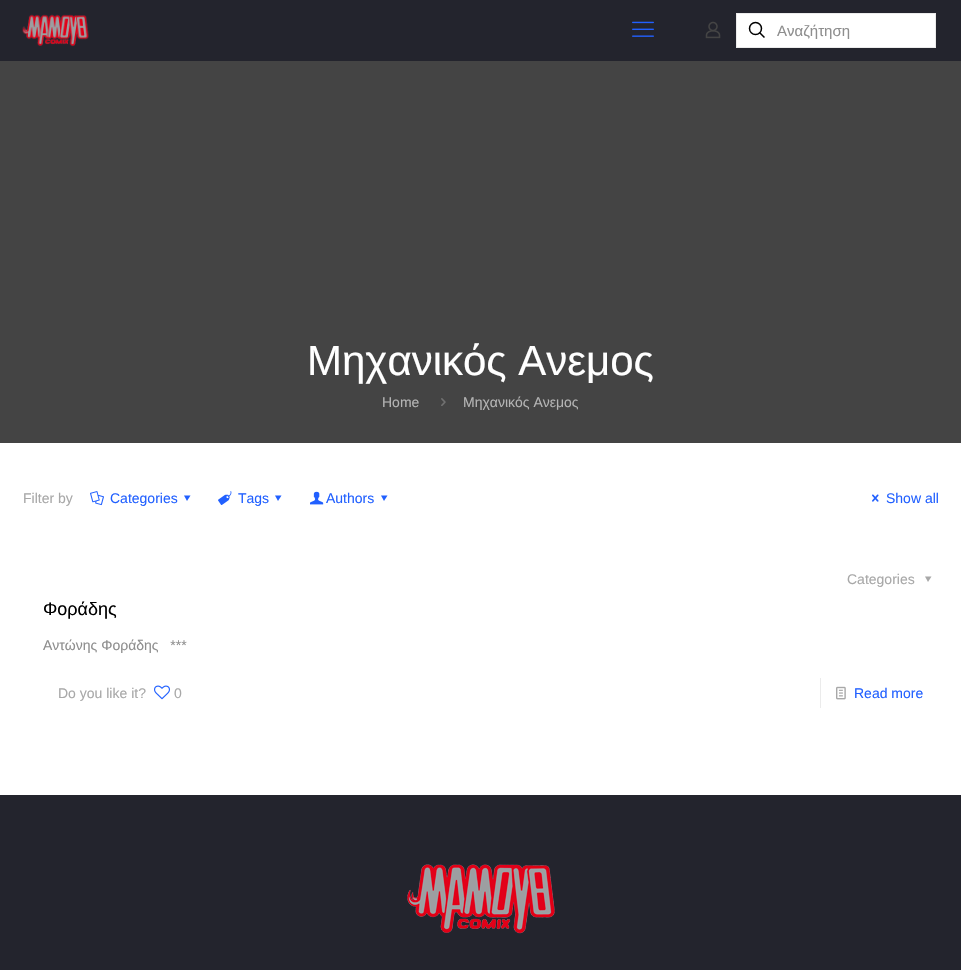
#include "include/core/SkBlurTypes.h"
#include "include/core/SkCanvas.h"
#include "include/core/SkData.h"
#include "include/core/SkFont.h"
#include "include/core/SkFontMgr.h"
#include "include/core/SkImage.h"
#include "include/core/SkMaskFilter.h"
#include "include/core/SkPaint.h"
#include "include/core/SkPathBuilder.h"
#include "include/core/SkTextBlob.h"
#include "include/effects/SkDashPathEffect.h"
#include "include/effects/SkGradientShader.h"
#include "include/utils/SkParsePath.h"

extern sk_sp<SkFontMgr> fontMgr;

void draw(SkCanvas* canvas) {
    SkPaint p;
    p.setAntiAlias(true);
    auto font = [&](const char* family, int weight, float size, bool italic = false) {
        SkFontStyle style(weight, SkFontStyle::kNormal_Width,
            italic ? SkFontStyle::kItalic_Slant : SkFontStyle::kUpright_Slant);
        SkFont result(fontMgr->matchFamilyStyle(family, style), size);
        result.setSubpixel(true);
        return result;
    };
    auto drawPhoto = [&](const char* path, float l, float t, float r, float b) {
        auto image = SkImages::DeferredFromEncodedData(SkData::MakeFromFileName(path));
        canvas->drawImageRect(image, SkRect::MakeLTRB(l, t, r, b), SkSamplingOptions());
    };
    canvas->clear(0xFFFFFFFF);
    p.setColor(0xFF23242D);
    canvas->drawRect(SkRect::MakeLTRB(0, 0, 961, 61), p);
    drawPhoto("media/1.png", 22, 14, 89, 47);
    drawPhoto("media/2.png", 632, 21, 654, 37);
    drawPhoto("media/3.png", 705, 21, 721, 39);
    p.setColor(0xFFFFFFFF);
    canvas->drawRect(SkRect::MakeLTRB(736.5f, 13.5f, 935.5f, 47.5f), p);
    p.setStyle(SkPaint::kStroke_Style);
    p.setStrokeWidth(1);
    p.setColor(0xFFEBEBEB);
    canvas->drawRect(SkRect::MakeLTRB(736.5f, 13.5f, 935.5f, 47.5f), p);
    p.setStrokeWidth(1.5f);
    p.setColor(0xFF000000);
    canvas->drawCircle(755.5f, 28.5f, 6, p);
    canvas->drawPath(SkPathBuilder().moveTo(759.5f, 32.5f).lineTo(764.5f, 37.5f).detach(), p);
    canvas->save();
    canvas->clipRect(SkRect::MakeLTRB(777, 22, 927, 39));
    auto font1 = font("Liberation Sans", 400, 15);
    p.setStyle(SkPaint::kFill_Style);
    p.setColor(0xFF8E8E8E);
    canvas->drawString("Αναζήτηση", 777, 36, font1, p);
    canvas->restore();
    p.setColor(0xFF444444);
    canvas->drawRect(SkRect::MakeLTRB(0, 61, 961, 443), p);
    auto font2 = font("Liberation Sans", 400, 42);
    p.setColor(0xFFFFFFFF);
    canvas->drawString("Μηχανικός Ανεμος", 307, 375, font2, p);
    auto font3 = font("Liberation Sans", 400, 14);
    p.setColor(0xFFB4B4B4);
    canvas->drawString("Home", 382, 407, font3, p);
    drawPhoto("media/4.png", 441, 398, 446, 406);
    canvas->drawString("Μηχανικός Ανεμος", 463, 407, font3, p);
    p.setColor(0xFFA8A8A8);
    canvas->drawString("Filter by", 23, 503, font3, p);
    drawPhoto("media/5.png", 90, 491, 104, 506);
    p.setColor(0xFF2160FF);
    canvas->drawString("Categories", 110, 503, font3, p);
    canvas->drawPath(SkPathBuilder().moveTo(190.5f, 495.5f).lineTo(187, 501).lineTo(184, 495.5f).close().detach(), p);
    drawPhoto("media/6.png", 218, 491, 232, 505);
    canvas->drawString("Tags", 238, 503, font3, p);
    canvas->drawPath(SkPathBuilder().moveTo(281.5f, 495.5f).lineTo(278, 501).lineTo(275, 495.5f).close().detach(), p);
    drawPhoto("media/7.png", 310, 491, 324, 505);
    canvas->drawString("Authors", 326, 503, font3, p);
    canvas->drawPath(SkPathBuilder().moveTo(387.5f, 495.5f).lineTo(384, 501).lineTo(381, 495.5f).close().detach(), p);
    drawPhoto("media/8.png", 872, 494, 879, 502);
    canvas->drawString("Show all", 886, 503, font3, p);
    p.setColor(0xFFA8A8A8);
    canvas->drawString("Categories", 847, 584, font3, p);
    canvas->drawPath(SkPathBuilder().moveTo(931.5f, 576.5f).lineTo(928, 582).lineTo(925, 576.5f).close().detach(), p);
    auto font4 = font("Liberation Sans", 400, 18);
    p.setColor(0xFF000000);
    canvas->drawString("Φοράδης", 43, 615, font4, p);
    p.setColor(0xFF8E8E8E);
    canvas->drawString("Αντώνης Φοράδης   ***", 43, 650, font3, p);
    p.setColor(0xFFA8A8A8);
    canvas->drawString("Do you like it?", 58, 698, font3, p);
    drawPhoto("media/9.png", 154, 685, 170, 700);
    canvas->drawString("0", 174, 698, font3, p);
    p.setColor(0xFFEBEBEB);
    canvas->drawRect(SkRect::MakeLTRB(820, 678, 821, 708), p);
    drawPhoto("media/10.png", 836, 686, 846, 700);
    p.setColor(0xFF2160FF);
    canvas->drawString("Read more", 854, 698, font3, p);
    p.setColor(0xFF23242D);
    canvas->drawRect(SkRect::MakeLTRB(0, 795, 961, 970), p);
    drawPhoto("media/11.png", 407, 864, 555, 934);
}
